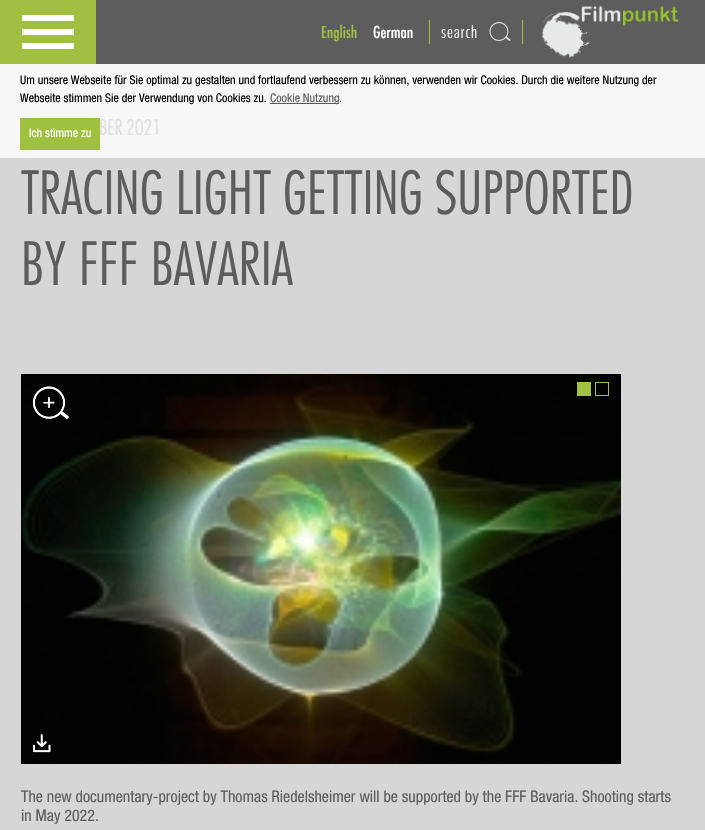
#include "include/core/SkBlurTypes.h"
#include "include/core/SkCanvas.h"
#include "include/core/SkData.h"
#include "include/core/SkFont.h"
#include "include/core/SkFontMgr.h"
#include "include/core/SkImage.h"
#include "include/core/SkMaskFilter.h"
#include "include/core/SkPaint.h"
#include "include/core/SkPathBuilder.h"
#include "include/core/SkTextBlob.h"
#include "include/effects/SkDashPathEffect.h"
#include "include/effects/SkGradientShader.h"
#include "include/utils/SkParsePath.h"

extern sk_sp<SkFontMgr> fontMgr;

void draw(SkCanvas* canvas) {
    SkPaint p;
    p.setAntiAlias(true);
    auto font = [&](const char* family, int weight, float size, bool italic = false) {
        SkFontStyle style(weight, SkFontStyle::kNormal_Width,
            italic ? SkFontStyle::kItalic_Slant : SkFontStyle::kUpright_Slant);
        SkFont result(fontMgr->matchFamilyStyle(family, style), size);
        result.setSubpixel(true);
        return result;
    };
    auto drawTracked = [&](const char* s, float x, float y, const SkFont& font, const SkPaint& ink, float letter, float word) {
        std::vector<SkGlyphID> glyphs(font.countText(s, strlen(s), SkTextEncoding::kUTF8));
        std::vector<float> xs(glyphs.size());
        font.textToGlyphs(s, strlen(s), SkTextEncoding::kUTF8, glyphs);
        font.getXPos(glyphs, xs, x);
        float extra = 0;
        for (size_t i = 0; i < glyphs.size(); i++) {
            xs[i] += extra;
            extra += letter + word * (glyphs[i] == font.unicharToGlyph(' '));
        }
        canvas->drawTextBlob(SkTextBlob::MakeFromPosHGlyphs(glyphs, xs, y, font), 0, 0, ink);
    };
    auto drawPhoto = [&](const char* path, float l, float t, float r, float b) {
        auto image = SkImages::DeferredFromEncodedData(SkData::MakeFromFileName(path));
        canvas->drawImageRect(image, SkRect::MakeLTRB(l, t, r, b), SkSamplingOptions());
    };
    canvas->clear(0xFFD6D6D6);
    {
        const struct { float l, t, r, b; SkColor color; } items[] = {
            {0, 64, 705, 158, 0xFFF7F7F7},
            {96, 0, 705, 64, 0xFF5D5D5D},
            {0, 0, 96, 64, 0xFFA1BF40},
            {22, 15, 74, 21, 0xFFFFFFFF},
            {22, 29, 74, 35, 0xFFFFFFFF},
            {22, 43, 74, 49, 0xFFFFFFFF},
        };
        for (auto [l, t, r, b, color] : items) {
            p.setColor(color);
            canvas->drawRect(SkRect::MakeLTRB(l, t, r, b), p);
        }
    }
    auto font1 = font("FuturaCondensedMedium", 500, 16);
    p.setColor(0xFFA2C042);
    canvas->drawString("English", 321, 38, font1, p);
    p.setColor(0xFFFFFFFF);
    canvas->drawString("German", 373, 38, font1, p);
    auto font2 = font("BenchNine", 300, 18);
    drawTracked("search", 441, 38, font2, p, 1, 0);
    p.setColor(0xFFA1BF40);
    canvas->drawRect(SkRect::MakeLTRB(429, 20, 430, 44), p);
    p.setColor(0xFFA2C042);
    canvas->drawRect(SkRect::MakeLTRB(522, 20, 523, 44), p);
    drawPhoto("media/1.png", 489, 22, 511, 41);
    drawPhoto("media/2.png", 541, 5, 679, 58);
    auto font3 = font("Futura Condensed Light", 300, 21);
    p.setColor(0xFFDFDFDF);
    canvas->drawString("BER", 99, 135, font3, p);
    canvas->drawString("2021", 126, 135, font3, p);
    auto font4 = font("Futura Condensed Light", 300, 58);
    p.setColor(0xFF5D5D5D);
    canvas->drawString("TRACING LIGHT GETTING SUPPORTED", 21, 214, font4, p);
    canvas->drawString("BY FFF BAVARIA", 21, 285, font4, p);
    drawPhoto("media/3.png", 21, 374, 621, 764);
    drawPhoto("media/4.png", 33, 734, 51, 753);
    p.setColor(0xFFA2C042);
    canvas->drawRect(SkRect::MakeLTRB(577, 382, 591, 396), p);
    p.setStyle(SkPaint::kStroke_Style);
    p.setStrokeWidth(1);
    canvas->drawRect(SkRect::MakeLTRB(595.5f, 382.5f, 608.5f, 395.5f), p);
    drawPhoto("media/5.png", 33, 386, 69, 419);
    drawPhoto("media/6.png", 33, 386, 69, 419);
    auto font5 = font("Helvetica Neue", 400, 16);
    p.setStyle(SkPaint::kFill_Style);
    p.setColor(0xFF5D5D5D);
    canvas->drawString("The new documentary-project by Thomas Riedelsheimer will be supported by the FFF Bavaria. Shooting starts", 21, 802, font5, p);
    canvas->drawString("in May 2022.", 21, 821, font5, p);
    auto font6 = font("Helvetica Neue", 400, 12);
    p.setColor(0xFF000000);
    canvas->drawString("Um unsere Webseite für Sie optimal zu gestalten und fortlaufend verbessern zu können, verwenden wir Cookies. Durch die weitere Nutzung der", 20, 84, font6, p);
    canvas->drawString("Webseite stimmen Sie der Verwendung von Cookies zu.", 20, 102, font6, p);
    p.setColor(0xFF5A5858);
    canvas->drawRect(SkRect::MakeLTRB(270, 103, 339, 104), p);
    p.setColor(0xFF5D5D5D);
    canvas->drawString("Cookie Nutzung", 270, 102, font6, p);
    p.setColor(0xFF000000);
    canvas->drawString(".", 339, 102, font6, p);
    p.setColor(0xFFA0C03F);
    canvas->drawRect(SkRect::MakeLTRB(20, 118, 100, 150), p);
    p.setColor(0xFFFFFFFF);
    canvas->drawString("Ich stimme zu", 29, 137, font6, p);
}
